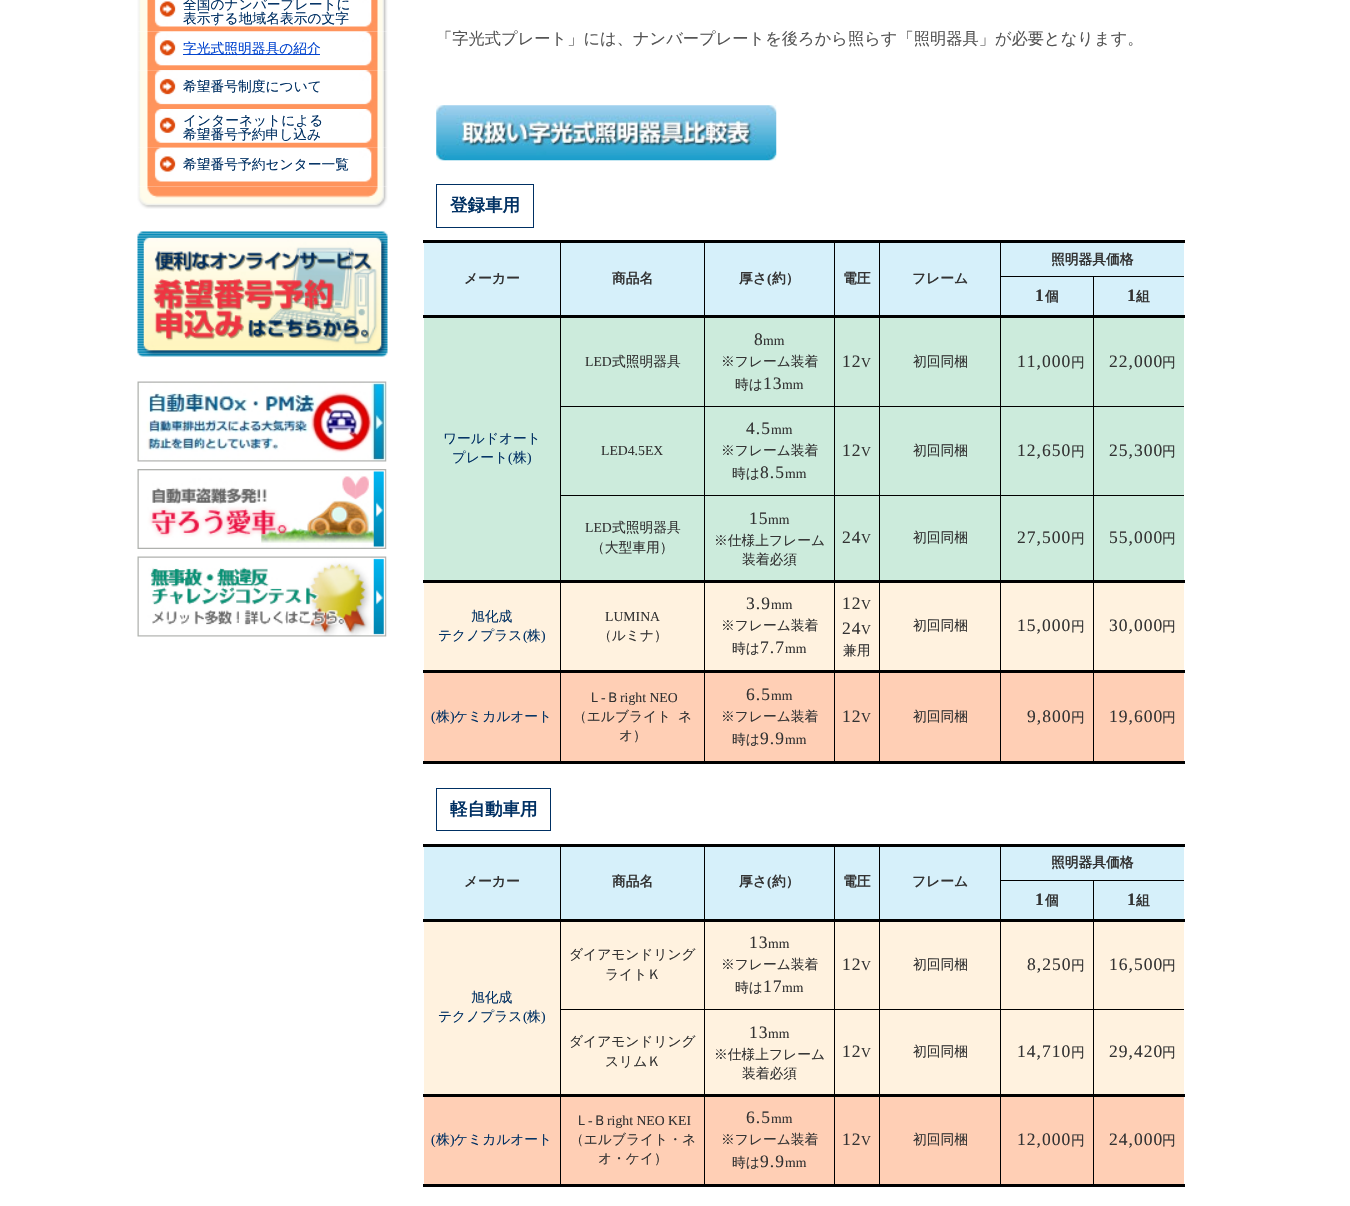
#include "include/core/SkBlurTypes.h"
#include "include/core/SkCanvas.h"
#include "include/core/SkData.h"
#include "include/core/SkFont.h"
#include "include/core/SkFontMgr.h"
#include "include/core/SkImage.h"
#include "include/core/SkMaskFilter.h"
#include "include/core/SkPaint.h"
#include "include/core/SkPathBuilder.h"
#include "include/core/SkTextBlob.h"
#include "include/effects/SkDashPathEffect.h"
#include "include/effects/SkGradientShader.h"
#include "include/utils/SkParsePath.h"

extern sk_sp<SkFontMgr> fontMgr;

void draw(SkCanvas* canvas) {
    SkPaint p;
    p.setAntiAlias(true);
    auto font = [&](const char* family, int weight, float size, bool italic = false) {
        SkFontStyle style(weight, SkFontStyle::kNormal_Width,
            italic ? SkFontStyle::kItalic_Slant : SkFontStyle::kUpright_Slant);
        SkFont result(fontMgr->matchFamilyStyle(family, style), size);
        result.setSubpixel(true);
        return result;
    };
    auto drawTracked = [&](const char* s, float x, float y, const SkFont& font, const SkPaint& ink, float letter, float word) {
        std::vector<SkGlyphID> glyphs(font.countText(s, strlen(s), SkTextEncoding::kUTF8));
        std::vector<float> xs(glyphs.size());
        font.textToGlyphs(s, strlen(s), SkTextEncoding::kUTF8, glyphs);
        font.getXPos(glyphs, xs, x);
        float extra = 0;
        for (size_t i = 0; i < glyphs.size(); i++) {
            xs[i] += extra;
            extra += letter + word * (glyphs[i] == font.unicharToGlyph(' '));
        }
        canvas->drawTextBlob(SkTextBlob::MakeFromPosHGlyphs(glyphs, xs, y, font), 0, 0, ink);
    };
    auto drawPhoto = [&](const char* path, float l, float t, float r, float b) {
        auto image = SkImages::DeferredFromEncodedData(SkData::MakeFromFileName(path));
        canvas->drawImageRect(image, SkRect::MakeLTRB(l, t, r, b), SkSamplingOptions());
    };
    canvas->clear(0xFFFFFFFF);
    drawPhoto("media/1.png", 137, 0, 388, 32);
    auto font1 = font("WenQuanYi Zen Hei", 500, 13.75f);
    p.setColor(0xFF003063);
    canvas->drawString("全国のナンバープレートに", 183, 9, font1, p);
    canvas->drawString("表示する地域名表示の文字", 183, 23, font1, p);
    drawPhoto("media/2.png", 137, 31, 388, 71);
    p.setColor(0xFF0345CF);
    canvas->drawRect(SkRect::MakeLTRB(183, 54, 320, 55), p);
    canvas->drawString("字光式照明器具の紹介", 183, 53, font1, p);
    drawPhoto("media/3.png", 137, 70, 388, 109);
    p.setColor(0xFF003063);
    canvas->drawString("希望番号制度について", 183, 91, font1, p);
    drawPhoto("media/4.png", 137, 109, 388, 148);
    canvas->drawString("インターネットによる", 183, 125, font1, p);
    canvas->drawString("希望番号予約申し込み", 183, 139, font1, p);
    drawPhoto("media/5.png", 137, 147, 388, 187);
    canvas->drawString("希望番号予約センター一覧", 183, 169, font1, p);
    drawPhoto("media/6.png", 137, 186, 388, 209);
    drawPhoto("media/7.png", 137, 231, 388, 357);
    drawPhoto("media/8.png", 137, 381, 387, 462);
    drawPhoto("media/9.png", 137, 469, 387, 549);
    drawPhoto("media/10.png", 137, 556, 387, 637);
    auto font2 = font("WenQuanYi Zen Hei", 500, 16.25f);
    p.setColor(0xFF555555);
    canvas->drawString("「字光式プレート」には、ナンバープレートを後ろから照らす「照明器具」が必要となります。", 436, 44, font2, p);
    drawPhoto("media/11.png", 436, 105, 777, 161);
    p.setStyle(SkPaint::kStroke_Style);
    p.setStrokeWidth(1);
    p.setColor(0xFF003063);
    canvas->drawRect(SkRect::MakeLTRB(436.5f, 184.5f, 533.5f, 227.5f), p);
    auto font3 = font("WenQuanYi Zen Hei", 700, 17.5f);
    p.setStyle(SkPaint::kFill_Style);
    canvas->drawString("登録車用", 450, 211, font3, p);
    {
        const struct { float l, t, r, b; SkColor color; } items[] = {
            {1001, 243, 1184, 278, 0xFFD6F0FA},
            {1093, 495, 1094, 763, 0xFF000000},
            {1093, 495, 1184, 496, 0xFF000000},
            {1093, 406, 1094, 496, 0xFF000000},
            {1093, 406, 1184, 407, 0xFF000000},
            {1093, 276, 1094, 408, 0xFF000000},
            {1000, 495, 1001, 763, 0xFF000000},
            {1000, 495, 1094, 496, 0xFF000000},
            {1000, 406, 1001, 496, 0xFF000000},
            {1000, 406, 1094, 407, 0xFF000000},
            {1000, 276, 1001, 408, 0xFF000000},
            {1000, 276, 1184, 277, 0xFF000000},
            {1000, 241, 1001, 278, 0xFF000000},
            {879, 495, 880, 763, 0xFF000000},
            {879, 495, 1001, 496, 0xFF000000},
            {879, 406, 880, 496, 0xFF000000},
            {879, 406, 1001, 407, 0xFF000000},
            {879, 241, 880, 408, 0xFF000000},
            {834, 495, 835, 763, 0xFF000000},
            {834, 495, 880, 496, 0xFF000000},
            {834, 406, 835, 496, 0xFF000000},
            {834, 406, 880, 407, 0xFF000000},
            {834, 241, 835, 408, 0xFF000000},
            {704, 495, 705, 763, 0xFF000000},
            {704, 495, 835, 496, 0xFF000000},
            {704, 406, 705, 496, 0xFF000000},
            {704, 406, 835, 407, 0xFF000000},
            {704, 241, 705, 408, 0xFF000000},
            {560, 495, 561, 763, 0xFF000000},
            {560, 495, 705, 496, 0xFF000000},
            {560, 406, 561, 496, 0xFF000000},
            {560, 406, 705, 407, 0xFF000000},
            {560, 241, 561, 408, 0xFF000000},
            {423, 240, 1185, 243, 0xFF000000},
        };
        for (auto [l, t, r, b, color] : items) {
            p.setColor(color);
            canvas->drawRect(SkRect::MakeLTRB(l, t, r, b), p);
        }
    }
    auto font4 = font("WenQuanYi Zen Hei", 700, 13.75f);
    p.setColor(0xFF333333);
    canvas->drawString("照明器具価格", 1051, 264, font4, p);
    p.setColor(0xFFD6F0FA);
    canvas->drawRect(SkRect::MakeLTRB(424, 243, 560, 315), p);
    p.setColor(0xFF333333);
    canvas->drawString("メーカー", 464, 283, font4, p);
    p.setColor(0xFFD6F0FA);
    canvas->drawRect(SkRect::MakeLTRB(561, 243, 704, 315), p);
    p.setColor(0xFF333333);
    canvas->drawString("商品名", 612, 283, font4, p);
    p.setColor(0xFFD6F0FA);
    canvas->drawRect(SkRect::MakeLTRB(705, 243, 834, 315), p);
    p.setColor(0xFF333333);
    canvas->drawString("厚さ", 739, 283, font4, p);
    auto font5 = font("Liberation Serif", 700, 13.75f);
    canvas->drawString("(", 767, 283, font5, p);
    canvas->drawString("約）", 772, 283, font4, p);
    p.setColor(0xFFD6F0FA);
    canvas->drawRect(SkRect::MakeLTRB(835, 243, 879, 315), p);
    p.setColor(0xFF333333);
    canvas->drawString("電圧", 843, 283, font4, p);
    p.setColor(0xFFD6F0FA);
    canvas->drawRect(SkRect::MakeLTRB(880, 243, 1000, 315), p);
    p.setColor(0xFF333333);
    canvas->drawString("フレーム", 912, 283, font4, p);
    p.setColor(0xFFD6F0FA);
    canvas->drawRect(SkRect::MakeLTRB(1001, 278, 1093, 315), p);
    auto font6 = font("Liberation Serif", 700, 17.5f);
    p.setColor(0xFF333333);
    drawTracked("1", 1035, 301, font6, p, 1, 0);
    canvas->drawString("個", 1045, 301, font4, p);
    p.setColor(0xFFD6F0FA);
    canvas->drawRect(SkRect::MakeLTRB(1094, 278, 1184, 315), p);
    p.setColor(0xFF000000);
    canvas->drawRect(SkRect::MakeLTRB(423, 315, 1185, 318), p);
    p.setColor(0xFF333333);
    drawTracked("1", 1127, 301, font6, p, 1, 0);
    canvas->drawString("組", 1136, 301, font4, p);
    p.setColor(0xFFCCEBDC);
    canvas->drawRect(SkRect::MakeLTRB(561, 318, 704, 406), p);
    auto font7 = font("Liberation Serif", 400, 13.75f);
    p.setColor(0xFF333333);
    canvas->drawString("LED", 585, 366, font7, p);
    canvas->drawString("式照明器具", 612, 366, font1, p);
    p.setColor(0xFFCCEBDC);
    canvas->drawRect(SkRect::MakeLTRB(705, 318, 834, 406), p);
    auto font8 = font("Liberation Serif", 400, 17.5f);
    p.setColor(0xFF333333);
    drawTracked("8", 754, 345, font8, p, 1, 0);
    canvas->drawString("mm", 763, 345, font7, p);
    canvas->drawString("※フレーム装着", 721, 366, font1, p);
    canvas->drawString("時は", 735, 389, font1, p);
    drawTracked("13", 763, 389, font8, p, 1, 0);
    canvas->drawString("mm", 782, 389, font7, p);
    p.setColor(0xFFCCEBDC);
    canvas->drawRect(SkRect::MakeLTRB(835, 318, 879, 406), p);
    p.setColor(0xFF333333);
    drawTracked("12", 842, 367, font8, p, 1, 0);
    canvas->drawString("V", 861, 367, font7, p);
    p.setColor(0xFFCCEBDC);
    canvas->drawRect(SkRect::MakeLTRB(880, 318, 1000, 406), p);
    p.setColor(0xFF333333);
    canvas->drawString("初回同梱", 913, 366, font1, p);
    p.setColor(0xFFCCEBDC);
    canvas->drawRect(SkRect::MakeLTRB(1001, 318, 1093, 406), p);
    p.setColor(0xFF333333);
    drawTracked("11,000", 1017, 367, font8, p, 1, 0);
    canvas->drawString("円", 1071, 367, font1, p);
    p.setColor(0xFFCCEBDC);
    canvas->drawRect(SkRect::MakeLTRB(1094, 318, 1184, 406), p);
    p.setColor(0xFF333333);
    drawTracked("22,000", 1109, 367, font8, p, 1, 0);
    canvas->drawString("円", 1162, 367, font1, p);
    p.setColor(0xFFCCEBDC);
    canvas->drawRect(SkRect::MakeLTRB(424, 318, 560, 580), p);
    p.setColor(0xFF003063);
    canvas->drawString("ワールドオート", 443, 443, font1, p);
    canvas->drawString("プレート", 452, 462, font1, p);
    canvas->drawString("(", 508, 462, font7, p);
    canvas->drawString("株", 513, 462, font1, p);
    canvas->drawString(")", 527, 462, font7, p);
    p.setColor(0xFFCCEBDC);
    canvas->drawRect(SkRect::MakeLTRB(561, 407, 704, 495), p);
    p.setColor(0xFF333333);
    canvas->drawString("LED4.5EX", 601, 455, font7, p);
    p.setColor(0xFFCCEBDC);
    canvas->drawRect(SkRect::MakeLTRB(705, 407, 834, 495), p);
    p.setColor(0xFF333333);
    drawTracked("4.5", 746, 434, font8, p, 1, 0);
    canvas->drawString("mm", 771, 434, font7, p);
    canvas->drawString("※フレーム装着", 721, 455, font1, p);
    canvas->drawString("時は", 732, 478, font1, p);
    drawTracked("8.5", 760, 478, font8, p, 1, 0);
    canvas->drawString("mm", 785, 478, font7, p);
    p.setColor(0xFFCCEBDC);
    canvas->drawRect(SkRect::MakeLTRB(835, 407, 879, 495), p);
    p.setColor(0xFF333333);
    drawTracked("12", 842, 456, font8, p, 1, 0);
    canvas->drawString("V", 861, 456, font7, p);
    p.setColor(0xFFCCEBDC);
    canvas->drawRect(SkRect::MakeLTRB(880, 407, 1000, 495), p);
    p.setColor(0xFF333333);
    canvas->drawString("初回同梱", 913, 455, font1, p);
    p.setColor(0xFFCCEBDC);
    canvas->drawRect(SkRect::MakeLTRB(1001, 407, 1093, 495), p);
    p.setColor(0xFF333333);
    drawTracked("12,650", 1017, 456, font8, p, 1, 0);
    canvas->drawString("円", 1071, 456, font1, p);
    p.setColor(0xFFCCEBDC);
    canvas->drawRect(SkRect::MakeLTRB(1094, 407, 1184, 495), p);
    p.setColor(0xFF333333);
    drawTracked("25,300", 1109, 456, font8, p, 1, 0);
    canvas->drawString("円", 1162, 456, font1, p);
    p.setColor(0xFFCCEBDC);
    canvas->drawRect(SkRect::MakeLTRB(561, 496, 704, 580), p);
    p.setColor(0xFF333333);
    canvas->drawString("LED", 585, 532, font7, p);
    canvas->drawString("式照明器具", 612, 532, font1, p);
    canvas->drawString("（大型車用）", 591, 552, font1, p);
    p.setColor(0xFFCCEBDC);
    canvas->drawRect(SkRect::MakeLTRB(705, 496, 834, 580), p);
    p.setColor(0xFF333333);
    drawTracked("15", 749, 524, font8, p, 1, 0);
    canvas->drawString("mm", 768, 524, font7, p);
    canvas->drawString("※仕様上フレーム", 714, 545, font1, p);
    canvas->drawString("装着必須", 742, 564, font1, p);
    p.setColor(0xFFCCEBDC);
    canvas->drawRect(SkRect::MakeLTRB(835, 496, 879, 580), p);
    p.setColor(0xFF333333);
    drawTracked("24", 842, 543, font8, p, 1, 0);
    canvas->drawString("V", 861, 543, font7, p);
    p.setColor(0xFFCCEBDC);
    canvas->drawRect(SkRect::MakeLTRB(880, 496, 1000, 580), p);
    p.setColor(0xFF333333);
    canvas->drawString("初回同梱", 913, 542, font1, p);
    p.setColor(0xFFCCEBDC);
    canvas->drawRect(SkRect::MakeLTRB(1001, 496, 1093, 580), p);
    p.setColor(0xFF333333);
    drawTracked("27,500", 1017, 543, font8, p, 1, 0);
    canvas->drawString("円", 1071, 543, font1, p);
    p.setColor(0xFFCCEBDC);
    canvas->drawRect(SkRect::MakeLTRB(1094, 496, 1184, 580), p);
    p.setColor(0xFF000000);
    canvas->drawRect(SkRect::MakeLTRB(423, 580, 1185, 583), p);
    p.setColor(0xFF333333);
    drawTracked("55,000", 1109, 543, font8, p, 1, 0);
    canvas->drawString("円", 1162, 543, font1, p);
    p.setColor(0xFFFFF2DF);
    canvas->drawRect(SkRect::MakeLTRB(424, 583, 560, 670), p);
    p.setColor(0xFF003063);
    canvas->drawString("旭化成", 471, 621, font1, p);
    canvas->drawString("テクノプラス", 438, 640, font1, p);
    canvas->drawString("(", 523, 640, font7, p);
    canvas->drawString("株", 527, 640, font1, p);
    canvas->drawString(")", 541, 640, font7, p);
    p.setColor(0xFFFFF2DF);
    canvas->drawRect(SkRect::MakeLTRB(561, 583, 704, 670), p);
    p.setColor(0xFF333333);
    canvas->drawString("LUMINA", 605, 621, font7, p);
    canvas->drawString("（ルミナ）", 598, 640, font1, p);
    p.setColor(0xFFFFF2DF);
    canvas->drawRect(SkRect::MakeLTRB(705, 583, 834, 670), p);
    p.setColor(0xFF333333);
    drawTracked("3.9", 746, 609, font8, p, 1, 0);
    canvas->drawString("mm", 771, 609, font7, p);
    canvas->drawString("※フレーム装着", 721, 630, font1, p);
    canvas->drawString("時は", 732, 653, font1, p);
    drawTracked("7.7", 760, 653, font8, p, 1, 0);
    canvas->drawString("mm", 785, 653, font7, p);
    p.setColor(0xFFFFF2DF);
    canvas->drawRect(SkRect::MakeLTRB(835, 583, 879, 670), p);
    p.setColor(0xFF333333);
    drawTracked("12", 842, 609, font8, p, 1, 0);
    canvas->drawString("V", 861, 609, font7, p);
    drawTracked("24", 842, 634, font8, p, 1, 0);
    canvas->drawString("V", 861, 634, font7, p);
    canvas->drawString("兼用", 843, 655, font1, p);
    p.setColor(0xFFFFF2DF);
    canvas->drawRect(SkRect::MakeLTRB(880, 583, 1000, 670), p);
    p.setColor(0xFF333333);
    canvas->drawString("初回同梱", 913, 630, font1, p);
    p.setColor(0xFFFFF2DF);
    canvas->drawRect(SkRect::MakeLTRB(1001, 583, 1093, 670), p);
    p.setColor(0xFF333333);
    drawTracked("15,000", 1017, 631, font8, p, 1, 0);
    canvas->drawString("円", 1071, 631, font1, p);
    p.setColor(0xFFFFF2DF);
    canvas->drawRect(SkRect::MakeLTRB(1094, 583, 1184, 670), p);
    p.setColor(0xFF000000);
    canvas->drawRect(SkRect::MakeLTRB(423, 670, 1185, 673), p);
    p.setColor(0xFF333333);
    drawTracked("30,000", 1109, 631, font8, p, 1, 0);
    canvas->drawString("円", 1162, 631, font1, p);
    p.setColor(0xFFFFCFB5);
    canvas->drawRect(SkRect::MakeLTRB(424, 673, 560, 761), p);
    p.setColor(0xFF003063);
    canvas->drawString("(", 431, 721, font7, p);
    canvas->drawString("株", 436, 721, font1, p);
    canvas->drawString(")", 450, 721, font7, p);
    canvas->drawString("ケミカルオート", 454, 721, font1, p);
    p.setColor(0xFFFFCFB5);
    canvas->drawRect(SkRect::MakeLTRB(561, 673, 704, 761), p);
    p.setColor(0xFF333333);
    canvas->drawString("Ｌ", 588, 702, font1, p);
    canvas->drawString("-", 601, 702, font7, p);
    canvas->drawString("Ｂ", 606, 702, font1, p);
    canvas->drawString("right NEO", 620, 702, font7, p);
    {
        const struct { const char* s; float x, y; } items[] = {
            {"（エルブライト", 573, 721},
            {"ネ", 678, 721},
            {"オ）", 619, 740},
        };
        for (auto [s, x, y] : items) {
            canvas->drawString(s, x, y, font1, p);
        }
    }
    p.setColor(0xFFFFCFB5);
    canvas->drawRect(SkRect::MakeLTRB(705, 673, 834, 761), p);
    p.setColor(0xFF333333);
    drawTracked("6.5", 746, 700, font8, p, 1, 0);
    canvas->drawString("mm", 771, 700, font7, p);
    canvas->drawString("※フレーム装着", 721, 721, font1, p);
    canvas->drawString("時は", 732, 744, font1, p);
    drawTracked("9.9", 760, 744, font8, p, 1, 0);
    canvas->drawString("mm", 785, 744, font7, p);
    p.setColor(0xFFFFCFB5);
    canvas->drawRect(SkRect::MakeLTRB(835, 673, 879, 761), p);
    p.setColor(0xFF333333);
    drawTracked("12", 842, 722, font8, p, 1, 0);
    canvas->drawString("V", 861, 722, font7, p);
    p.setColor(0xFFFFCFB5);
    canvas->drawRect(SkRect::MakeLTRB(880, 673, 1000, 761), p);
    p.setColor(0xFF333333);
    canvas->drawString("初回同梱", 913, 721, font1, p);
    p.setColor(0xFFFFCFB5);
    canvas->drawRect(SkRect::MakeLTRB(1001, 673, 1093, 761), p);
    p.setColor(0xFF333333);
    drawTracked("9,800", 1027, 722, font8, p, 1, 0);
    canvas->drawString("円", 1071, 722, font1, p);
    p.setColor(0xFFFFCFB5);
    canvas->drawRect(SkRect::MakeLTRB(1094, 673, 1184, 761), p);
    p.setColor(0xFF000000);
    canvas->drawRect(SkRect::MakeLTRB(423, 761, 1185, 764), p);
    p.setColor(0xFF333333);
    drawTracked("19,600", 1109, 722, font8, p, 1, 0);
    canvas->drawString("円", 1162, 722, font1, p);
    p.setStyle(SkPaint::kStroke_Style);
    p.setColor(0xFF003063);
    canvas->drawRect(SkRect::MakeLTRB(436.5f, 788.5f, 550.5f, 830.5f), p);
    p.setStyle(SkPaint::kFill_Style);
    canvas->drawString("軽自動車用", 450, 815, font3, p);
    {
        const struct { float l, t, r, b; SkColor color; } items[] = {
            {1001, 847, 1184, 880, 0xFFD6F0FA},
            {1093, 1009, 1094, 1186, 0xFF000000},
            {1093, 1009, 1184, 1010, 0xFF000000},
            {1093, 880, 1094, 1010, 0xFF000000},
            {1000, 1009, 1001, 1186, 0xFF000000},
            {1000, 1009, 1094, 1010, 0xFF000000},
            {1000, 880, 1001, 1010, 0xFF000000},
            {1000, 880, 1184, 881, 0xFF000000},
            {1000, 844, 1001, 881, 0xFF000000},
            {879, 1009, 880, 1186, 0xFF000000},
            {879, 1009, 1001, 1010, 0xFF000000},
            {879, 844, 880, 1010, 0xFF000000},
            {834, 1009, 835, 1186, 0xFF000000},
            {834, 1009, 880, 1010, 0xFF000000},
            {834, 844, 835, 1010, 0xFF000000},
            {704, 1009, 705, 1186, 0xFF000000},
            {704, 1009, 835, 1010, 0xFF000000},
            {704, 844, 705, 1010, 0xFF000000},
            {560, 1009, 561, 1186, 0xFF000000},
            {560, 1009, 705, 1010, 0xFF000000},
            {560, 844, 561, 1010, 0xFF000000},
            {423, 844, 1185, 847, 0xFF000000},
        };
        for (auto [l, t, r, b, color] : items) {
            p.setColor(color);
            canvas->drawRect(SkRect::MakeLTRB(l, t, r, b), p);
        }
    }
    p.setColor(0xFF333333);
    canvas->drawString("照明器具価格", 1051, 867, font4, p);
    p.setColor(0xFFD6F0FA);
    canvas->drawRect(SkRect::MakeLTRB(424, 847, 560, 919), p);
    p.setColor(0xFF333333);
    canvas->drawString("メーカー", 464, 886, font4, p);
    p.setColor(0xFFD6F0FA);
    canvas->drawRect(SkRect::MakeLTRB(561, 847, 704, 919), p);
    p.setColor(0xFF333333);
    canvas->drawString("商品名", 612, 886, font4, p);
    p.setColor(0xFFD6F0FA);
    canvas->drawRect(SkRect::MakeLTRB(705, 847, 834, 919), p);
    p.setColor(0xFF333333);
    canvas->drawString("厚さ", 739, 886, font4, p);
    canvas->drawString("(", 767, 886, font5, p);
    canvas->drawString("約）", 772, 886, font4, p);
    p.setColor(0xFFD6F0FA);
    canvas->drawRect(SkRect::MakeLTRB(835, 847, 879, 919), p);
    p.setColor(0xFF333333);
    canvas->drawString("電圧", 843, 886, font4, p);
    p.setColor(0xFFD6F0FA);
    canvas->drawRect(SkRect::MakeLTRB(880, 847, 1000, 919), p);
    p.setColor(0xFF333333);
    canvas->drawString("フレーム", 912, 886, font4, p);
    p.setColor(0xFFD6F0FA);
    canvas->drawRect(SkRect::MakeLTRB(1001, 881, 1093, 919), p);
    p.setColor(0xFF333333);
    drawTracked("1", 1035, 905, font6, p, 1, 0);
    canvas->drawString("個", 1045, 905, font4, p);
    p.setColor(0xFFD6F0FA);
    canvas->drawRect(SkRect::MakeLTRB(1094, 881, 1184, 919), p);
    p.setColor(0xFF000000);
    canvas->drawRect(SkRect::MakeLTRB(423, 919, 1185, 922), p);
    p.setColor(0xFF333333);
    drawTracked("1", 1127, 905, font6, p, 1, 0);
    canvas->drawString("組", 1136, 905, font4, p);
    p.setColor(0xFFFFF2DF);
    canvas->drawRect(SkRect::MakeLTRB(561, 922, 704, 1009), p);
    p.setColor(0xFF333333);
    canvas->drawString("ダイアモンドリング", 569, 959, font1, p);
    canvas->drawString("ライトＫ", 605, 979, font1, p);
    p.setColor(0xFFFFF2DF);
    canvas->drawRect(SkRect::MakeLTRB(705, 922, 834, 1009), p);
    p.setColor(0xFF333333);
    drawTracked("13", 749, 948, font8, p, 1, 0);
    canvas->drawString("mm", 768, 948, font7, p);
    canvas->drawString("※フレーム装着", 721, 969, font1, p);
    canvas->drawString("時は", 735, 992, font1, p);
    drawTracked("17", 763, 992, font8, p, 1, 0);
    canvas->drawString("mm", 782, 992, font7, p);
    p.setColor(0xFFFFF2DF);
    canvas->drawRect(SkRect::MakeLTRB(835, 922, 879, 1009), p);
    p.setColor(0xFF333333);
    drawTracked("12", 842, 970, font8, p, 1, 0);
    canvas->drawString("V", 861, 970, font7, p);
    p.setColor(0xFFFFF2DF);
    canvas->drawRect(SkRect::MakeLTRB(880, 922, 1000, 1009), p);
    p.setColor(0xFF333333);
    canvas->drawString("初回同梱", 913, 969, font1, p);
    p.setColor(0xFFFFF2DF);
    canvas->drawRect(SkRect::MakeLTRB(1001, 922, 1093, 1009), p);
    p.setColor(0xFF333333);
    drawTracked("8,250", 1027, 970, font8, p, 1, 0);
    canvas->drawString("円", 1071, 970, font1, p);
    p.setColor(0xFFFFF2DF);
    canvas->drawRect(SkRect::MakeLTRB(1094, 922, 1184, 1009), p);
    p.setColor(0xFF333333);
    drawTracked("16,500", 1109, 970, font8, p, 1, 0);
    canvas->drawString("円", 1162, 970, font1, p);
    p.setColor(0xFFFFF2DF);
    canvas->drawRect(SkRect::MakeLTRB(424, 922, 560, 1094), p);
    p.setColor(0xFF003063);
    canvas->drawString("旭化成", 471, 1002, font1, p);
    canvas->drawString("テクノプラス", 438, 1021, font1, p);
    canvas->drawString("(", 523, 1021, font7, p);
    canvas->drawString("株", 527, 1021, font1, p);
    canvas->drawString(")", 541, 1021, font7, p);
    p.setColor(0xFFFFF2DF);
    canvas->drawRect(SkRect::MakeLTRB(561, 1010, 704, 1094), p);
    p.setColor(0xFF333333);
    canvas->drawString("ダイアモンドリング", 569, 1046, font1, p);
    canvas->drawString("スリムＫ", 605, 1066, font1, p);
    p.setColor(0xFFFFF2DF);
    canvas->drawRect(SkRect::MakeLTRB(705, 1010, 834, 1094), p);
    p.setColor(0xFF333333);
    drawTracked("13", 749, 1038, font8, p, 1, 0);
    canvas->drawString("mm", 768, 1038, font7, p);
    canvas->drawString("※仕様上フレーム", 714, 1059, font1, p);
    canvas->drawString("装着必須", 742, 1078, font1, p);
    p.setColor(0xFFFFF2DF);
    canvas->drawRect(SkRect::MakeLTRB(835, 1010, 879, 1094), p);
    p.setColor(0xFF333333);
    drawTracked("12", 842, 1057, font8, p, 1, 0);
    canvas->drawString("V", 861, 1057, font7, p);
    p.setColor(0xFFFFF2DF);
    canvas->drawRect(SkRect::MakeLTRB(880, 1010, 1000, 1094), p);
    p.setColor(0xFF333333);
    canvas->drawString("初回同梱", 913, 1056, font1, p);
    p.setColor(0xFFFFF2DF);
    canvas->drawRect(SkRect::MakeLTRB(1001, 1010, 1093, 1094), p);
    p.setColor(0xFF333333);
    drawTracked("14,710", 1017, 1057, font8, p, 1, 0);
    canvas->drawString("円", 1071, 1057, font1, p);
    p.setColor(0xFFFFF2DF);
    canvas->drawRect(SkRect::MakeLTRB(1094, 1010, 1184, 1094), p);
    p.setColor(0xFF000000);
    canvas->drawRect(SkRect::MakeLTRB(423, 1094, 1185, 1097), p);
    p.setColor(0xFF333333);
    drawTracked("29,420", 1109, 1057, font8, p, 1, 0);
    canvas->drawString("円", 1162, 1057, font1, p);
    p.setColor(0xFFFFCFB5);
    canvas->drawRect(SkRect::MakeLTRB(424, 1097, 560, 1184), p);
    p.setColor(0xFF003063);
    canvas->drawString("(", 431, 1144, font7, p);
    canvas->drawString("株", 436, 1144, font1, p);
    canvas->drawString(")", 450, 1144, font7, p);
    canvas->drawString("ケミカルオート", 454, 1144, font1, p);
    p.setColor(0xFFFFCFB5);
    canvas->drawRect(SkRect::MakeLTRB(561, 1097, 704, 1184), p);
    p.setColor(0xFF333333);
    canvas->drawString("Ｌ", 575, 1125, font1, p);
    canvas->drawString("-", 588, 1125, font7, p);
    canvas->drawString("Ｂ", 593, 1125, font1, p);
    canvas->drawString("right NEO KEI", 607, 1125, font7, p);
    canvas->drawString("（エルブライト・ネ", 570, 1144, font1, p);
    canvas->drawString("オ・ケイ）", 598, 1163, font1, p);
    p.setColor(0xFFFFCFB5);
    canvas->drawRect(SkRect::MakeLTRB(705, 1097, 834, 1184), p);
    p.setColor(0xFF333333);
    drawTracked("6.5", 746, 1123, font8, p, 1, 0);
    canvas->drawString("mm", 771, 1123, font7, p);
    canvas->drawString("※フレーム装着", 721, 1144, font1, p);
    canvas->drawString("時は", 732, 1167, font1, p);
    drawTracked("9.9", 760, 1167, font8, p, 1, 0);
    canvas->drawString("mm", 785, 1167, font7, p);
    p.setColor(0xFFFFCFB5);
    canvas->drawRect(SkRect::MakeLTRB(835, 1097, 879, 1184), p);
    p.setColor(0xFF333333);
    drawTracked("12", 842, 1145, font8, p, 1, 0);
    canvas->drawString("V", 861, 1145, font7, p);
    p.setColor(0xFFFFCFB5);
    canvas->drawRect(SkRect::MakeLTRB(880, 1097, 1000, 1184), p);
    p.setColor(0xFF333333);
    canvas->drawString("初回同梱", 913, 1144, font1, p);
    p.setColor(0xFFFFCFB5);
    canvas->drawRect(SkRect::MakeLTRB(1001, 1097, 1093, 1184), p);
    p.setColor(0xFF333333);
    drawTracked("12,000", 1017, 1145, font8, p, 1, 0);
    canvas->drawString("円", 1071, 1145, font1, p);
    p.setColor(0xFFFFCFB5);
    canvas->drawRect(SkRect::MakeLTRB(1094, 1097, 1184, 1184), p);
    p.setColor(0xFF000000);
    canvas->drawRect(SkRect::MakeLTRB(423, 1184, 1185, 1187), p);
    p.setColor(0xFF333333);
    drawTracked("24,000", 1109, 1145, font8, p, 1, 0);
    canvas->drawString("円", 1162, 1145, font1, p);
}
